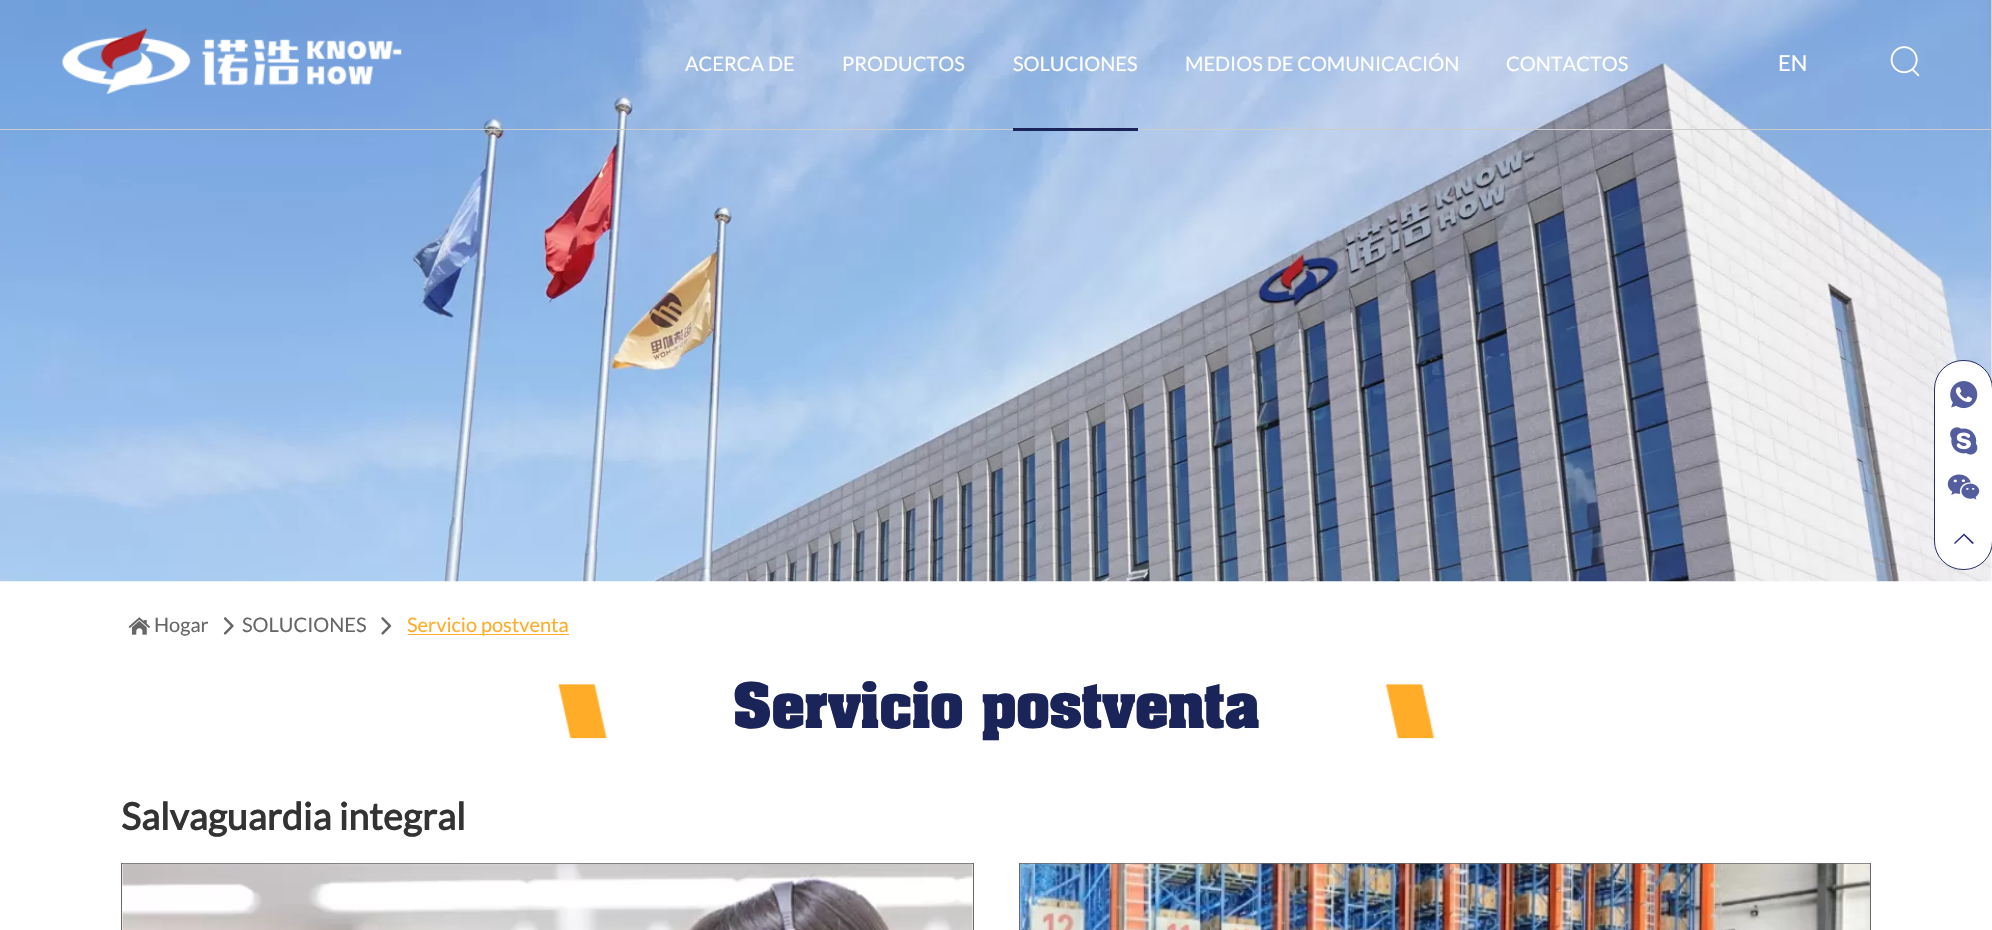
#include "include/core/SkBlurTypes.h"
#include "include/core/SkCanvas.h"
#include "include/core/SkData.h"
#include "include/core/SkFont.h"
#include "include/core/SkFontMgr.h"
#include "include/core/SkImage.h"
#include "include/core/SkMaskFilter.h"
#include "include/core/SkPaint.h"
#include "include/core/SkPathBuilder.h"
#include "include/core/SkTextBlob.h"
#include "include/effects/SkDashPathEffect.h"
#include "include/effects/SkGradientShader.h"
#include "include/utils/SkParsePath.h"

extern sk_sp<SkFontMgr> fontMgr;

void draw(SkCanvas* canvas) {
    SkPaint p;
    p.setAntiAlias(true);
    auto font = [&](const char* family, int weight, float size, bool italic = false) {
        SkFontStyle style(weight, SkFontStyle::kNormal_Width,
            italic ? SkFontStyle::kItalic_Slant : SkFontStyle::kUpright_Slant);
        SkFont result(fontMgr->matchFamilyStyle(family, style), size);
        result.setSubpixel(true);
        return result;
    };
    auto drawPhoto = [&](const char* path, float l, float t, float r, float b) {
        auto image = SkImages::DeferredFromEncodedData(SkData::MakeFromFileName(path));
        canvas->drawImageRect(image, SkRect::MakeLTRB(l, t, r, b), SkSamplingOptions());
    };
    canvas->clear(0xFFFFFFFF);
    drawPhoto("media/1.png", 0, 0, 1992, 582);
    p.setColor(0xFFCCCCCC);
    canvas->drawRect(SkRect::MakeLTRB(0, 129, 1992, 130), p);
    drawPhoto("media/2.png", 62, 28, 402, 94);
    auto font1 = font("Lato", 400, 20);
    p.setColor(0xFFFFFFFF);
    {
        const struct { const char* s; float x, y; } items[] = {
            {"ACERCA DE", 685, 71},
            {"PRODUCTOS", 842, 71},
            {"SOLUCIONES", 1013, 71},
        };
        for (auto [s, x, y] : items) {
            canvas->drawString(s, x, y, font1, p);
        }
    }
    p.setColor(0xFF1A2459);
    canvas->drawRect(SkRect::MakeLTRB(1013, 128, 1138, 131), p);
    p.setColor(0xFFFFFFFF);
    canvas->drawString("MEDIOS DE COMUNICACIÓN", 1185, 71, font1, p);
    canvas->drawString("CONTACTOS", 1506, 71, font1, p);
    auto font2 = font("Lato", 400, 22);
    canvas->drawString("EN", 1778, 71, font2, p);
    drawPhoto("media/3.png", 1890, 46, 1920, 77);
    canvas->drawRoundRect(SkRect::MakeLTRB(1934.5f, 360.5f, 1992.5f, 569.5f), 28.5f, 28.5f, p);
    p.setStyle(SkPaint::kStroke_Style);
    p.setStrokeWidth(1);
    p.setColor(0xFF242E63);
    canvas->drawRoundRect(SkRect::MakeLTRB(1934.5f, 360.5f, 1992.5f, 569.5f), 28.5f, 28.5f, p);
    drawPhoto("media/4.png", 1950, 381, 1978, 409);
    drawPhoto("media/5.png", 1950, 427, 1978, 455);
    drawPhoto("media/6.png", 1947, 474, 1980, 500);
    p.setStyle(SkPaint::kFill_Style);
    p.setColor(0xFF282D88);
    canvas->drawPath(SkPathBuilder().moveTo(1964, 533.5f).lineTo(1974, 543).lineTo(1972.5f, 544).lineTo(1964, 535.5f).lineTo(1955, 544).lineTo(1954, 543).close().detach(), p);
    drawPhoto("media/7.png", 128, 617, 150, 635);
    p.setColor(0xFF666666);
    canvas->drawString("Hogar", 154, 632, font1, p);
    drawPhoto("media/8.png", 223, 617, 234, 635);
    canvas->drawString("SOLUCIONES", 242, 632, font1, p);
    drawPhoto("media/9.png", 381, 617, 392, 635);
    p.setColor(0xFFFFAC28);
    canvas->drawRect(SkRect::MakeLTRB(408, 634, 569, 635), p);
    canvas->drawString("Servicio postventa", 407, 632, font1, p);
    drawPhoto("media/10.png", 558, 684, 607, 739);
    auto font3 = font("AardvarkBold", 700, 53.75f);
    p.setColor(0xFF1A2459);
    canvas->drawString("Servicio postventa", 733, 728, font3, p);
    drawPhoto("media/11.png", 1386, 684, 1434, 739);
    auto font4 = font("Lato", 700, 37.5f);
    p.setColor(0xFF333333);
    canvas->drawString("Salvaguardia integral", 121, 830, font4, p);
    p.setStyle(SkPaint::kStroke_Style);
    p.setColor(0xFF696969);
    canvas->drawRect(SkRect::MakeLTRB(121.5f, 863.5f, 973.5f, 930.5f), p);
    drawPhoto("media/12.png", 122, 863, 973, 930);
    canvas->drawRect(SkRect::MakeLTRB(1019.5f, 863.5f, 1870.5f, 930.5f), p);
    drawPhoto("media/13.png", 1020, 863, 1870, 930);
}
